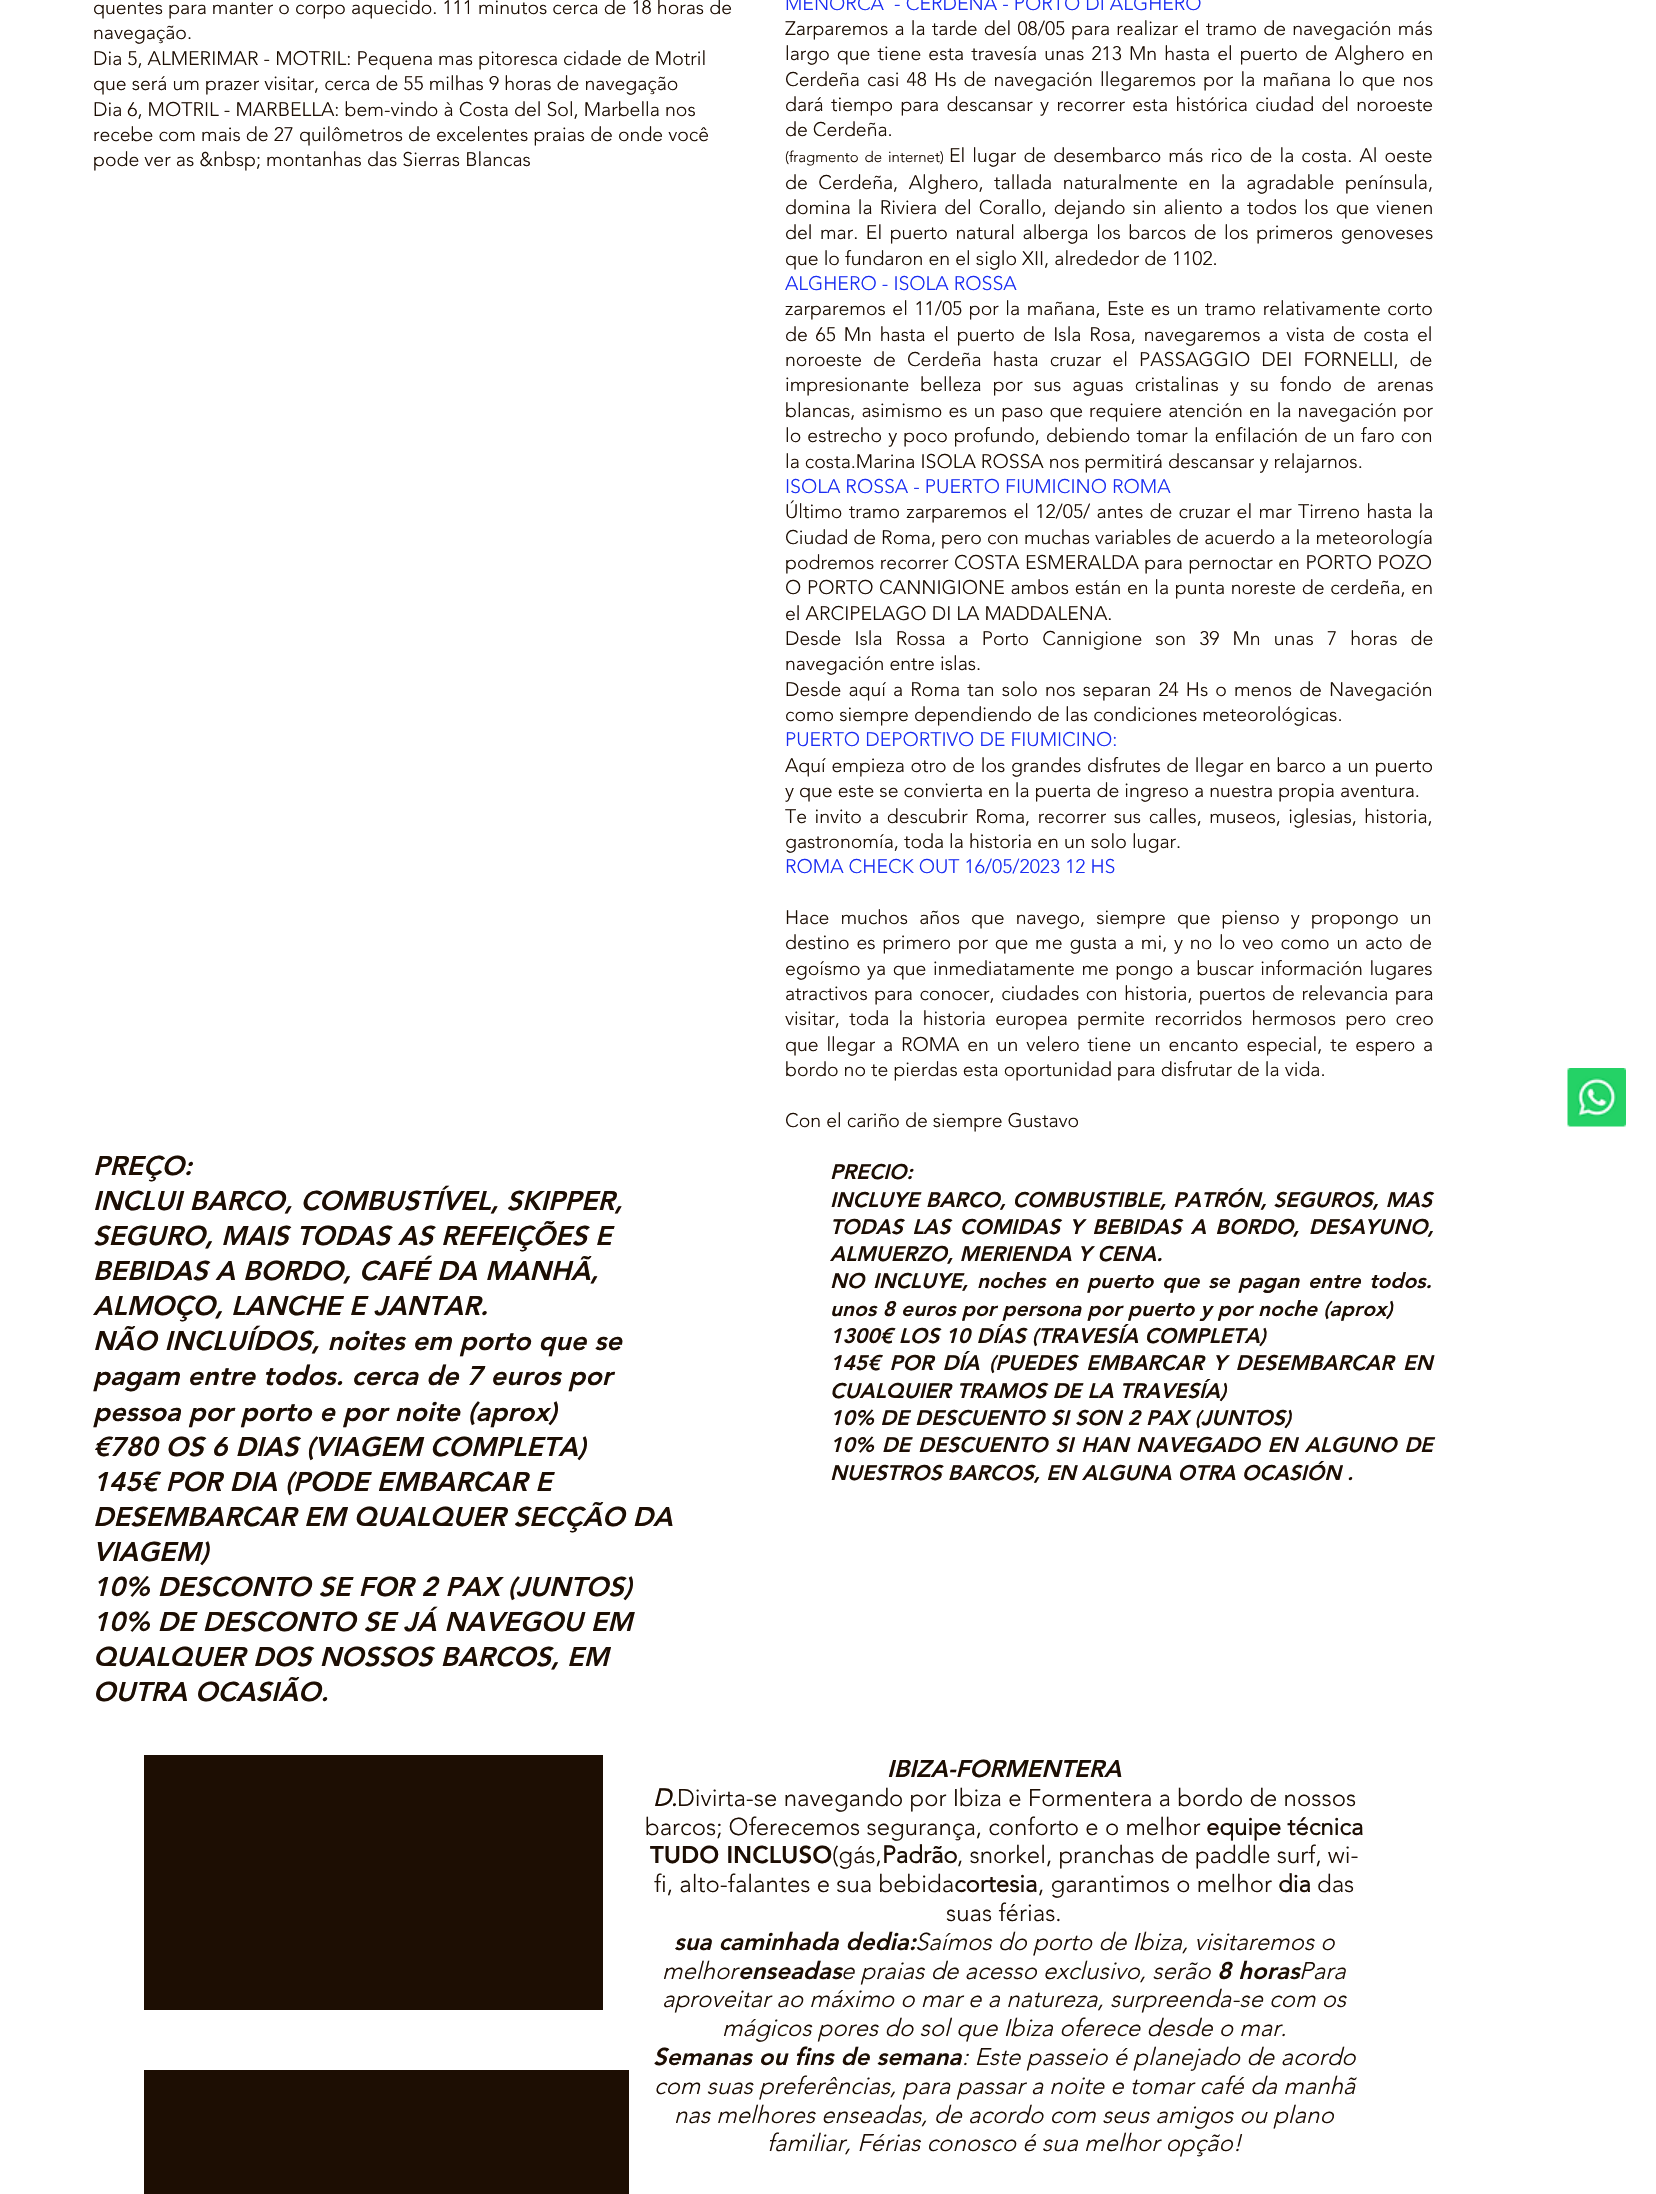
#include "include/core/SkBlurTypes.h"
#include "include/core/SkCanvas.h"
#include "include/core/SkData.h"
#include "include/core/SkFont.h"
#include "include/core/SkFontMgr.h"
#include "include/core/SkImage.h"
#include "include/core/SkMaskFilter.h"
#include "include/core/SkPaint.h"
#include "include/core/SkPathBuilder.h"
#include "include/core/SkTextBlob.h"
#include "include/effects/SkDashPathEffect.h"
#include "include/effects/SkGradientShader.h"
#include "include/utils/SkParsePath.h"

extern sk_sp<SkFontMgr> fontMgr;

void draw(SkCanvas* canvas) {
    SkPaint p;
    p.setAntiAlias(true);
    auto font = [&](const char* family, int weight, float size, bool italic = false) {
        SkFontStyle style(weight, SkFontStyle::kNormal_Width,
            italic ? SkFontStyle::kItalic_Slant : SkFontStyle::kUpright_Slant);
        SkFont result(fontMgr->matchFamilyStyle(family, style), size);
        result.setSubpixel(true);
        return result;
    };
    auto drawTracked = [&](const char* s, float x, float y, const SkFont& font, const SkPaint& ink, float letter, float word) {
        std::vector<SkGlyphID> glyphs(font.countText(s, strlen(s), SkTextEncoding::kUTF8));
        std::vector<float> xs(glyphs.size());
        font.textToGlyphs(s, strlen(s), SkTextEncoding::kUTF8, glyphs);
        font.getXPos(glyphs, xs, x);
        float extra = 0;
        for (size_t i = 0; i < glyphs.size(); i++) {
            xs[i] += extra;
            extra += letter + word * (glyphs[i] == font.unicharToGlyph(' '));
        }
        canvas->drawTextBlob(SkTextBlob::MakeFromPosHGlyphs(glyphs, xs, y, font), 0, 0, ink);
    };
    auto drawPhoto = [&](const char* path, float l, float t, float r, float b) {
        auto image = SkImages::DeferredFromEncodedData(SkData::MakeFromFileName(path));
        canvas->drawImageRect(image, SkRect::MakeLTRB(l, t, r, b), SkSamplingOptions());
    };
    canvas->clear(0xFFFFFFFF);
    auto font1 = font("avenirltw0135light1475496", 300, 19.5f);
    p.setColor(0xFF1D0E03);
    {
        const struct { const char* s; float x, y; } items[] = {
            {"quentes para manter o corpo aquecido. 111 minutos cerca de 18 horas de", 93, 14},
            {"navegação.", 93, 39},
            {"Dia 5, ALMERIMAR - MOTRIL: Pequena mas pitoresca cidade de Motril", 93, 65},
            {"que será um prazer visitar, cerca de 55 milhas 9 horas de navegação", 93, 90},
            {"Dia 6, MOTRIL - MARBELLA: bem-vindo à Costa del Sol, Marbella nos", 93, 116},
            {"recebe com mais de 27 quilômetros de excelentes praias de onde você", 93, 141},
            {"pode ver as &nbsp; montanhas das Sierras Blancas", 93, 166},
        };
        for (auto [s, x, y] : items) {
            canvas->drawString(s, x, y, font1, p);
        }
    }
    p.setColor(0xFF1A2DF3);
    canvas->drawString("MENORCA  - CERDEÑA - PORTO DI ALGHERO", 785, 10, font1, p);
    p.setColor(0xFF1D0E03);
    drawTracked("Zarparemos a la tarde del 08/05 para realizar el tramo de navegación más", 785, 35, font1, p, 0, 1.1f);
    drawTracked("largo que tiene esta travesía unas 213 Mn hasta el puerto de Alghero en", 785, 60, font1, p, 0, 2);
    drawTracked("Cerdeña casi 48 Hs de navegación llegaremos por la mañana lo que nos", 785, 86, font1, p, 0, 2.1f);
    drawTracked("dará tiempo para descansar y recorrer esta histórica ciudad del noroeste", 785, 111, font1, p, 0, 2.25f);
    canvas->drawString("de Cerdeña.", 785, 136, font1, p);
    auto font2 = font("avenirltw0135light1475496", 300, 15);
    drawTracked("(fragmento de internet)", 785, 162, font2, p, 0, 2);
    drawTracked("El lugar de desembarco más rico de la costa. Al oeste", 949, 162, font1, p, 0, 2);
    drawTracked("de Cerdeña, Alghero, tallada naturalmente en la agradable península,", 785, 189, font1, p, 0, 5.5f);
    drawTracked("domina la Riviera del Corallo, dejando sin aliento a todos los que vienen", 785, 214, font1, p, 0, 2);
    drawTracked("del mar. El puerto natural alberga los barcos de los primeros genoveses", 785, 239, font1, p, 0, 2.5f);
    canvas->drawString("que lo fundaron en el siglo XII, alrededor de 1102.", 785, 265, font1, p);
    p.setColor(0xFF1A2DF3);
    canvas->drawString("ALGHERO - ISOLA ROSSA", 785, 290, font1, p);
    p.setColor(0xFF1D0E03);
    drawTracked("zarparemos el 11/05 por la mañana, Este es un tramo relativamente corto", 785, 315, font1, p, 0, 1.5f);
    drawTracked("de 65 Mn hasta el puerto de Isla Rosa, navegaremos a vista de costa el", 785, 341, font1, p, 0, 2.75f);
    drawTracked("noroeste de Cerdeña hasta cruzar el PASSAGGIO DEI FORNELLI, de", 785, 366, font1, p, 0, 6);
    drawTracked("impresionante belleza por sus aguas cristalinas y su fondo de arenas", 785, 391, font1, p, 0, 6);
    drawTracked("blancas, asimismo es un paso que requiere atención en la navegación por", 785, 417, font1, p, 0, 1);
    drawTracked("lo estrecho y poco profundo, debiendo tomar la enfilación de un faro con", 785, 442, font1, p, 0, 1);
    canvas->drawString("la costa.Marina ISOLA ROSSA nos permitirá descansar y relajarnos.", 785, 468, font1, p);
    p.setColor(0xFF1A2DF3);
    canvas->drawString("ISOLA ROSSA - PUERTO FIUMICINO ROMA", 785, 493, font1, p);
    p.setColor(0xFF1D0E03);
    drawTracked("Último tramo zarparemos el 12/05/ antes de cruzar el mar Tirreno hasta la", 785, 518, font1, p, 0, 1.25f);
    canvas->drawString("Ciudad de Roma, pero con muchas variables de acuerdo a la meteorología", 785, 544, font1, p);
    drawTracked("podremos recorrer COSTA ESMERALDA para pernoctar en PORTO POZO", 785, 569, font1, p, 0, 0.5f);
    drawTracked("O PORTO CANNIGIONE ambos están en la punta noreste de cerdeña, en", 785, 594, font1, p, 0, 0.6f);
    canvas->drawString("el ARCIPELAGO DI LA MADDALENA.", 785, 620, font1, p);
    drawTracked("Desde Isla Rossa a Porto Cannigione son 39 Mn unas 7 horas de", 785, 645, font1, p, 0, 8);
    canvas->drawString("navegación entre islas.", 785, 670, font1, p);
    drawTracked("Desde aquí a Roma tan solo nos separan 24 Hs o menos de Navegación", 785, 696, font1, p, 0, 2);
    canvas->drawString("como siempre dependiendo de las condiciones meteorológicas.", 785, 721, font1, p);
    p.setColor(0xFF1A2DF3);
    canvas->drawString("PUERTO DEPORTIVO DE FIUMICINO:", 785, 746, font1, p);
    p.setColor(0xFF1D0E03);
    drawTracked("Aquí empieza otro de los grandes disfrutes de llegar en barco a un puerto", 785, 772, font1, p, 0, 0.6f);
    canvas->drawString("y que este se convierta en la puerta de ingreso a nuestra propia aventura.", 785, 797, font1, p);
    drawTracked("Te invito a descubrir Roma, recorrer sus calles, museos, iglesias, historia,", 785, 823, font1, p, 0, 2.4f);
    canvas->drawString("gastronomía, toda la historia en un solo lugar.", 785, 848, font1, p);
    p.setColor(0xFF1A2DF3);
    canvas->drawString("ROMA CHECK OUT 16/05/2023 12 HS", 785, 873, font1, p);
    p.setColor(0xFF1D0E03);
    drawTracked("Hace muchos años que navego, siempre que pienso y propongo un", 785, 924, font1, p, 0, 6);
    drawTracked("destino es primero por que me gusta a mi, y no lo veo como un acto de", 785, 949, font1, p, 0, 1.75f);
    drawTracked("egoísmo ya que inmediatamente me pongo a buscar información lugares", 785, 975, font1, p, 0, 1.5f);
    drawTracked("atractivos para conocer, ciudades con historia, puertos de relevancia para", 785, 1000, font1, p, 0, 1.5f);
    drawTracked("visitar, toda la historia europea permite recorridos hermosos pero creo", 785, 1025, font1, p, 0, 4.25f);
    drawTracked("que llegar a ROMA en un velero tiene un encanto especial, te espero a", 785, 1051, font1, p, 0, 2.75f);
    canvas->drawString("bordo no te pierdas esta oportunidad para disfrutar de la vida.", 785, 1076, font1, p);
    canvas->drawString("Con el cariño de siempre Gustavo", 785, 1127, font1, p);
    auto font3 = font("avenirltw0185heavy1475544", 900, 27, true);
    {
        const struct { const char* s; float x, y; } items[] = {
            {"PREÇO:", 93, 1175},
            {"INCLUI BARCO, COMBUSTÍVEL, SKIPPER,", 93, 1210},
            {"SEGURO, MAIS TODAS AS REFEIÇÕES E", 93, 1245},
            {"BEBIDAS A BORDO, CAFÉ DA MANHÃ,", 93, 1280},
            {"ALMOÇO, LANCHE E JANTAR.", 93, 1315},
            {"NÃO INCLUÍDOS, noites em porto que se", 93, 1350},
            {"pagam entre todos. cerca de 7 euros por", 93, 1385},
            {"pessoa por porto e por noite (aprox)", 93, 1421},
            {"€780 OS 6 DIAS (VIAGEM COMPLETA)", 93, 1456},
            {"145€ POR DIA (PODE EMBARCAR E", 93, 1491},
            {"DESEMBARCAR EM QUALQUER SECÇÃO DA", 93, 1526},
            {"VIAGEM)", 93, 1561},
            {"10% DESCONTO SE FOR 2 PAX (JUNTOS)", 93, 1596},
            {"10% DE DESCONTO SE JÁ NAVEGOU EM", 93, 1631},
            {"QUALQUER DOS NOSSOS BARCOS, EM", 93, 1666},
            {"OUTRA OCASIÃO.", 93, 1701},
        };
        for (auto [s, x, y] : items) {
            canvas->drawString(s, x, y, font3, p);
        }
    }
    auto font4 = font("avenirltw0185heavy1475544", 900, 21, true);
    canvas->drawString("PRECIO:", 830, 1179, font4, p);
    drawTracked("INCLUYE BARCO, COMBUSTIBLE, PATRÓN, SEGUROS, MAS", 830, 1207, font4, p, 0, 0.5f);
    drawTracked("TODAS LAS COMIDAS Y BEBIDAS A BORDO, DESAYUNO,", 830, 1234, font4, p, 0, 3.25f);
    canvas->drawString("ALMUERZO, MERIENDA Y CENA.", 830, 1261, font4, p);
    drawTracked("NO INCLUYE, noches en puerto que se pagan entre todos.", 830, 1288, font4, p, 0, 2.5f);
    canvas->drawString("unos 8 euros por persona por puerto y por noche (aprox)", 830, 1316, font4, p);
    canvas->drawString("1300€ LOS 10 DÍAS (TRAVESÍA COMPLETA)", 830, 1343, font4, p);
    drawTracked("145€ POR DÍA (PUEDES EMBARCAR Y DESEMBARCAR EN", 830, 1370, font4, p, 0, 3.25f);
    canvas->drawString("CUALQUIER TRAMOS DE LA TRAVESÍA)", 830, 1398, font4, p);
    canvas->drawString("10% DE DESCUENTO SI SON 2 PAX (JUNTOS)", 830, 1425, font4, p);
    drawTracked("10% DE DESCUENTO SI HAN NAVEGADO EN ALGUNO DE", 830, 1452, font4, p, 0, 1.5f);
    canvas->drawString("NUESTROS BARCOS, EN ALGUNA OTRA OCASIÓN .", 830, 1480, font4, p);
    canvas->drawRect(SkRect::MakeLTRB(144, 1755, 603, 2010), p);
    auto font5 = font("avenirltw0185heavy1475544", 900, 24, true);
    canvas->drawString("IBIZA-FORMENTERA", 887, 1777, font5, p);
    auto font6 = font("avenirltw0135light1475496", 700, 24, true);
    canvas->drawString("D.", 653, 1806, font6, p);
    auto font7 = font("avenirltw0135light1475496", 300, 24);
    canvas->drawString("Divirta-se navegando por Ibiza e Formentera a bordo de nossos", 677, 1806, font7, p);
    canvas->drawString("barcos; Oferecemos segurança, conforto e o melhor", 645, 1835, font7, p);
    auto font8 = font("avenirltw0135light1475496", 700, 24);
    canvas->drawString("equipe técnica", 1206, 1835, font8, p);
    auto font9 = font("avenirltw0185heavy1475544", 900, 24);
    canvas->drawString("TUDO INCLUSO", 650, 1863, font9, p);
    canvas->drawString("(gás,", 832, 1863, font7, p);
    canvas->drawString("Padrão", 882, 1863, font8, p);
    canvas->drawString(", snorkel, pranchas de paddle surf, wi-", 957, 1863, font7, p);
    canvas->drawString("fi, alto-falantes e sua bebida", 654, 1892, font7, p);
    canvas->drawString("cortesia", 954, 1892, font8, p);
    canvas->drawString(", garantimos o melhor", 1038, 1892, font7, p);
    canvas->drawString("dia", 1278, 1892, font8, p);
    canvas->drawString("das", 1317, 1892, font7, p);
    canvas->drawString("suas férias.", 946, 1921, font7, p);
    canvas->drawString("sua caminhada dedia:", 674, 1950, font5, p);
    auto font10 = font("avenirltw0135light1475496", 300, 24, true);
    canvas->drawString("Saímos do porto de Ibiza, visitaremos o", 915, 1950, font10, p);
    canvas->drawString("melhor", 662, 1979, font10, p);
    canvas->drawString("enseadas", 738, 1979, font5, p);
    canvas->drawString("e praias de acesso exclusivo, serão", 841, 1979, font10, p);
    canvas->drawString("8 horas", 1217, 1979, font5, p);
    {
        const struct { const char* s; float x, y; } items[] = {
            {"Para", 1299, 1979},
            {"aproveitar ao máximo o mar e a natureza, surpreenda-se com os", 662, 2007},
            {"mágicos pores do sol que Ibiza oferece desde o mar.", 722, 2036},
        };
        for (auto [s, x, y] : items) {
            canvas->drawString(s, x, y, font10, p);
        }
    }
    canvas->drawString("Semanas ou fins de semana", 653, 2065, font5, p);
    {
        const struct { const char* s; float x, y; } items[] = {
            {": Este passeio é planejado de acordo", 962, 2065},
            {"com suas preferências, para passar a noite e tomar café da manhã", 654, 2094},
            {"nas melhores enseadas, de acordo com seus amigos ou plano", 674, 2123},
            {"familiar, Férias conosco é sua melhor opção!", 767, 2151},
        };
        for (auto [s, x, y] : items) {
            canvas->drawString(s, x, y, font10, p);
        }
    }
    canvas->drawRect(SkRect::MakeLTRB(144, 2070, 629, 2194), p);
    drawPhoto("media/1.png", 1567, 1068, 1626, 1127);
}
